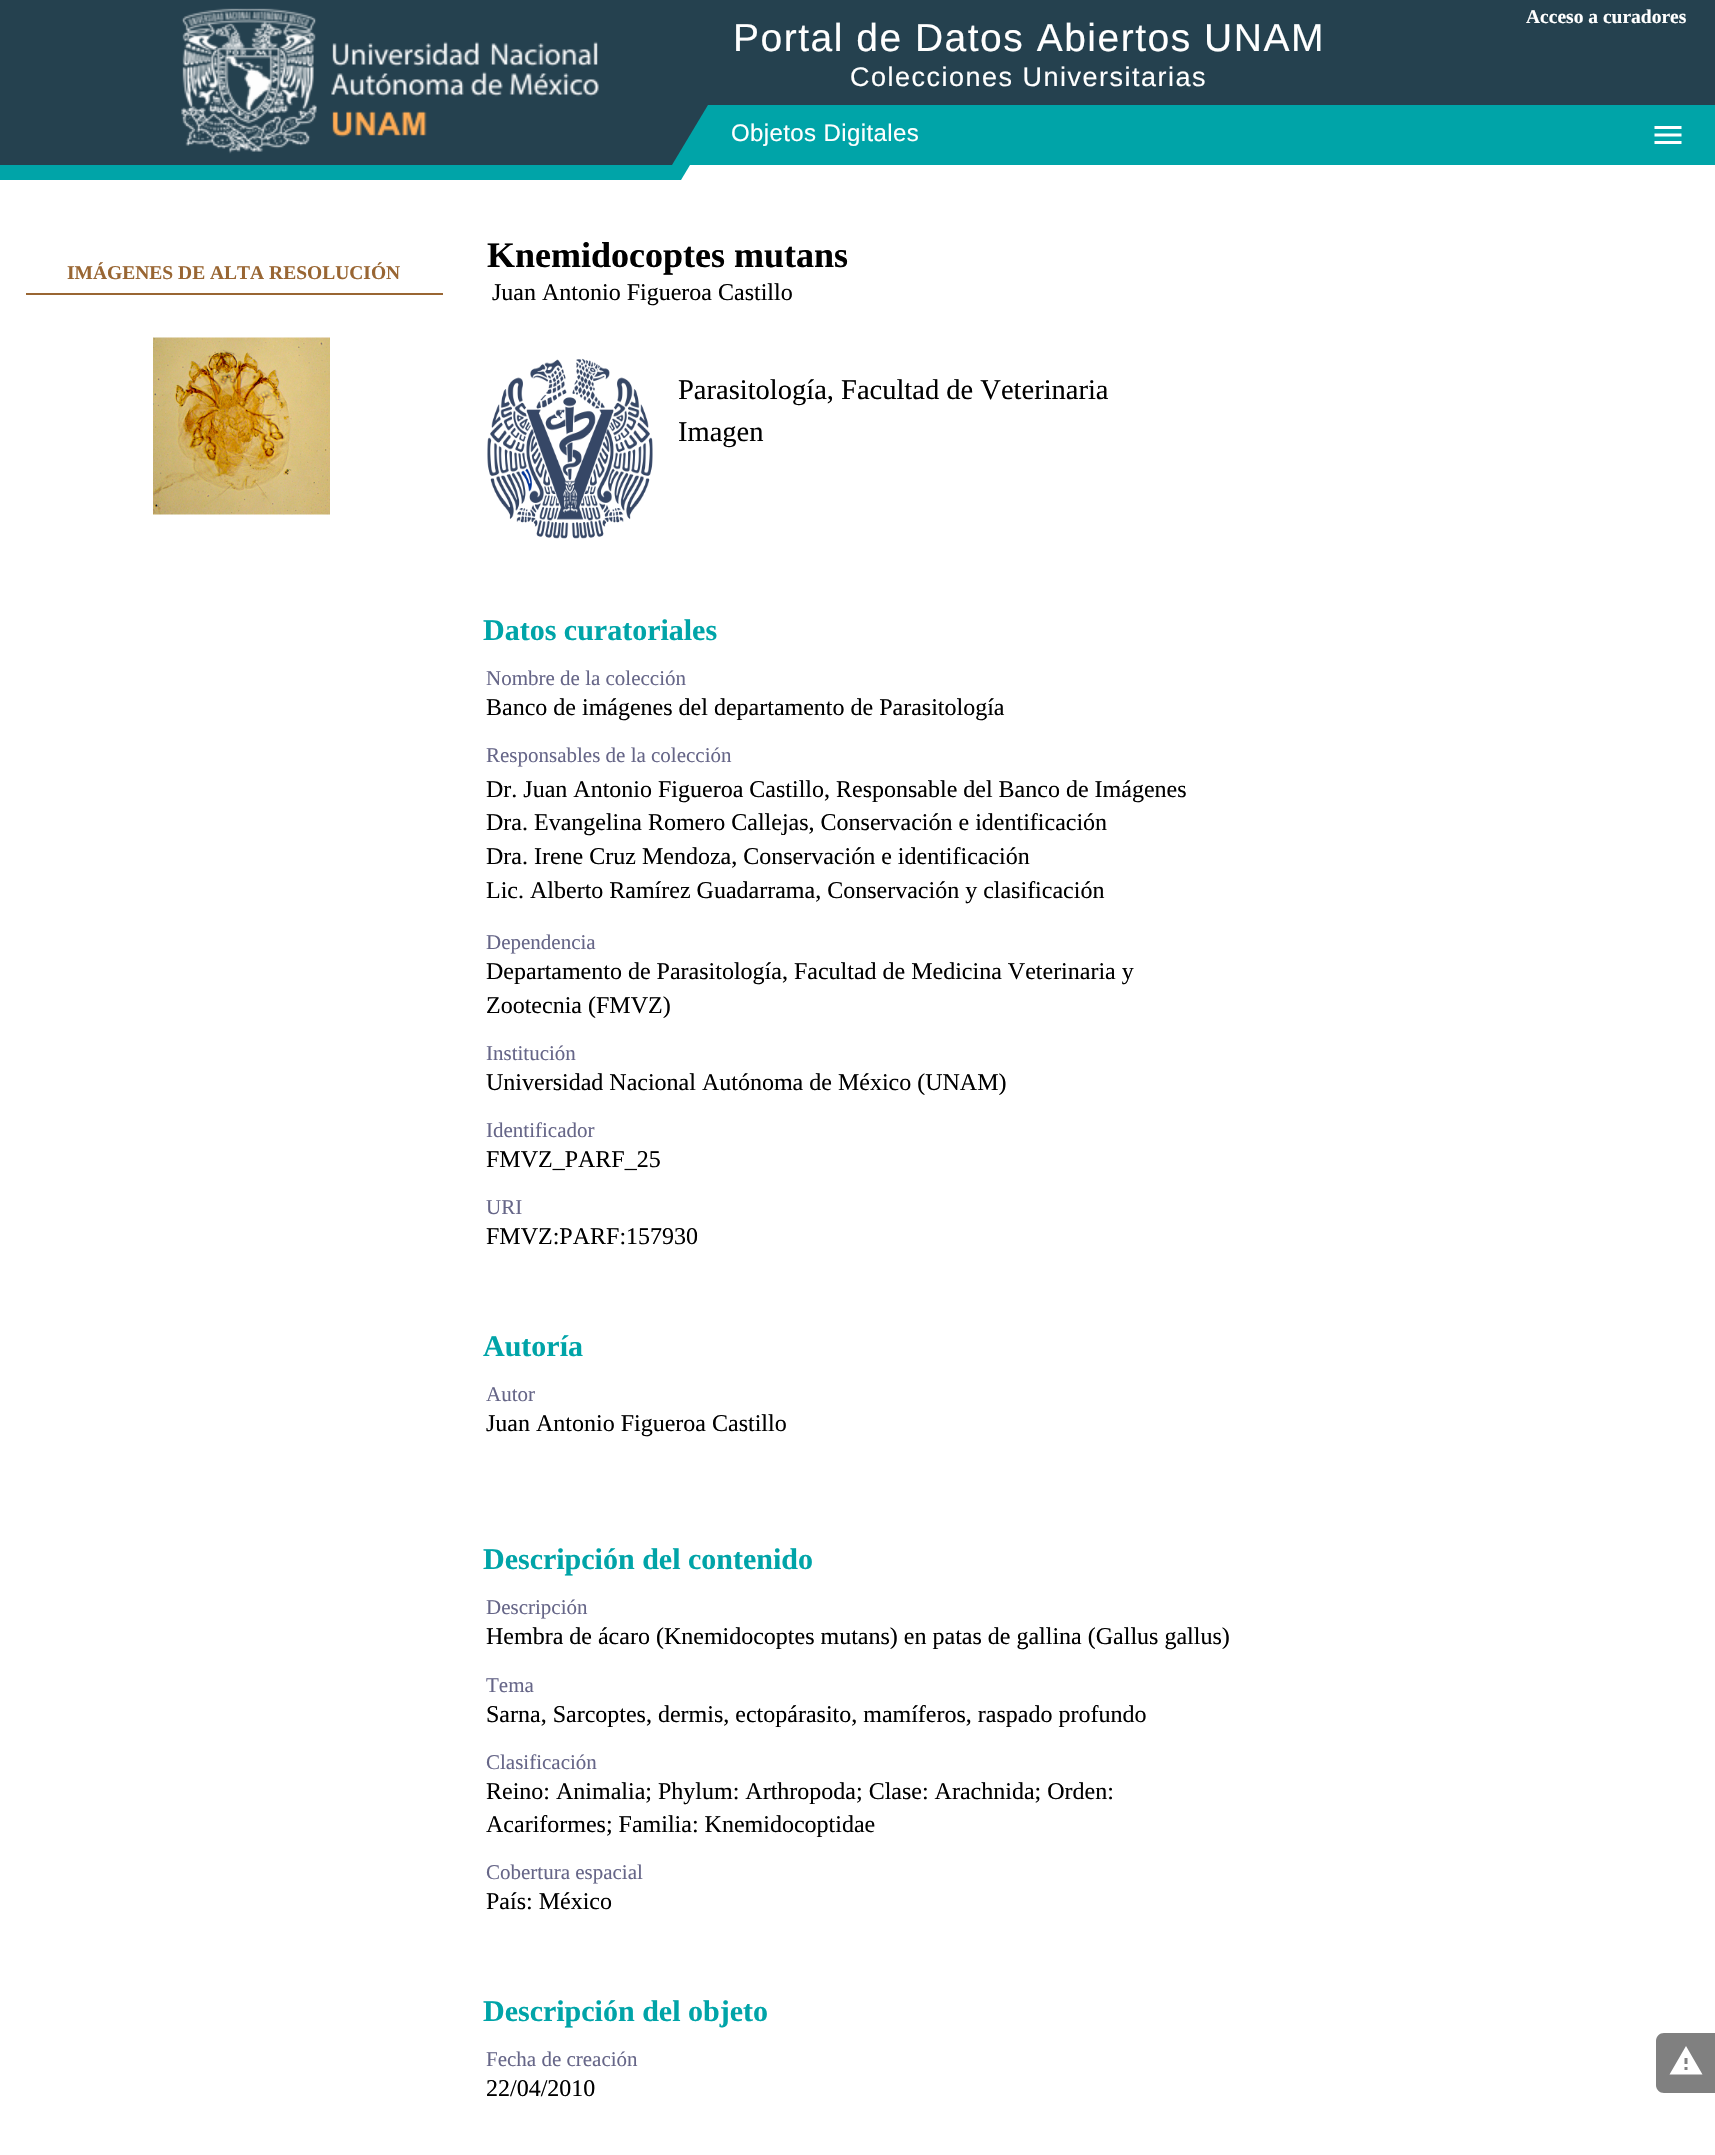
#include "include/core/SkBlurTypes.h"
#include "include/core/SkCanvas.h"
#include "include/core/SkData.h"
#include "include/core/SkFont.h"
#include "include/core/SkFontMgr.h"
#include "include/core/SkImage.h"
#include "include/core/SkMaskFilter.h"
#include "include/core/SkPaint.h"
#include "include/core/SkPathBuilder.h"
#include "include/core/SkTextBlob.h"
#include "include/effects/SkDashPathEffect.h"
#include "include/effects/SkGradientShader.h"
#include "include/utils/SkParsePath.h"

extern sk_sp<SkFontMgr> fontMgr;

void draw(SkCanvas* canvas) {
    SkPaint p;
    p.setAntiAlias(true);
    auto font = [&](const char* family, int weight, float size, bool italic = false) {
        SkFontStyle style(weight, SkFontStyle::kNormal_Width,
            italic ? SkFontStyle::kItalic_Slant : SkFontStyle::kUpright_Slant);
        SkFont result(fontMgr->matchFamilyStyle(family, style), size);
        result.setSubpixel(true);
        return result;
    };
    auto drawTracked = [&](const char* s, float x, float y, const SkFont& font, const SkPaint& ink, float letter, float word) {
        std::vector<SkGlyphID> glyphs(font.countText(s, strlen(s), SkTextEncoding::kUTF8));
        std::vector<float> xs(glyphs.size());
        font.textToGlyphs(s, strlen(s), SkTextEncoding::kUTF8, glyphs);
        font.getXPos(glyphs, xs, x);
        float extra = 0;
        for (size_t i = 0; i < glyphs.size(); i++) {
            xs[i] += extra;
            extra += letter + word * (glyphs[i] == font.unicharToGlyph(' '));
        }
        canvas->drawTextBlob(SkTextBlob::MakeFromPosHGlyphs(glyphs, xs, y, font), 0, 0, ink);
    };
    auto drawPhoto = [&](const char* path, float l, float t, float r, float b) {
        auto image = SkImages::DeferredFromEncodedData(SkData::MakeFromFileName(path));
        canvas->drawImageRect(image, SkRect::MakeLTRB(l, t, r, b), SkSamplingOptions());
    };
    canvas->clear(0xFFFFFFFF);
    p.setColor(0xFF25414F);
    canvas->drawRect(SkRect::MakeLTRB(0, 0, 1715, 165), p);
    drawPhoto("media/1.png", 181, 8, 599, 154);
    auto font1 = font("Liberation Serif", 700, 19.5f);
    p.setColor(0xFFFFFFFF);
    canvas->drawString("Acceso a curadores", 1526, 23, font1, p);
    auto font2 = font("Liberation Sans", 400, 39);
    drawTracked("Portal de Datos Abiertos UNAM", 733, 51, font2, p, 1.5f, 0);
    auto font3 = font("Liberation Sans", 400, 27);
    drawTracked("Colecciones Universitarias", 850, 86, font3, p, 1.5f, 0);
    p.setColor(0xFF00A4A8);
    canvas->drawRect(SkRect::MakeLTRB(708, 105, 1715, 165), p);
    auto font4 = font("Liberation Sans", 400, 24);
    p.setColor(0xFFFFFFFF);
    drawTracked("Objetos Digitales", 731, 141, font4, p, 0.4f, 0);
    p.setColor(0xFF00A4A8);
    canvas->drawPath(SkPathBuilder().moveTo(744, 165).lineTo(672, 165).lineTo(708, 105).close().detach(), p);
    drawPhoto("media/2.png", 1654, 126, 1682, 144);
    canvas->drawRect(SkRect::MakeLTRB(0, 165, 681, 180), p);
    canvas->drawPath(SkPathBuilder().moveTo(672, 165).lineTo(690, 165).lineTo(681, 180).close().detach(), p);
    p.setColor(0xFF996633);
    canvas->drawRect(SkRect::MakeLTRB(26, 293, 443, 295), p);
    canvas->drawString("IMÁGENES DE ALTA RESOLUCIÓN", 67, 279, font1, p);
    drawPhoto("media/3.png", 153, 337, 330, 515);
    auto font5 = font("Liberation Serif", 700, 36);
    p.setColor(0xFF000000);
    canvas->drawString("Knemidocoptes mutans", 487, 267, font5, p);
    auto font6 = font("Liberation Serif", 400, 24);
    canvas->drawString("Juan Antonio Figueroa Castillo", 492, 300, font6, p);
    drawPhoto("media/4.png", 487, 358, 653, 539);
    auto font7 = font("Liberation Serif", 400, 28.5f);
    canvas->drawString("Parasitología, Facultad de Veterinaria", 678, 399, font7, p);
    canvas->drawString("Imagen", 678, 441, font7, p);
    auto font8 = font("Liberation Serif", 700, 30);
    p.setColor(0xFF00A4A8);
    canvas->drawString("Datos curatoriales", 483, 640, font8, p);
    auto font9 = font("Liberation Serif", 400, 21);
    p.setColor(0xFF666688);
    canvas->drawString("Nombre de la colección", 486, 685, font9, p);
    p.setColor(0xFF000000);
    canvas->drawString("Banco de imágenes del departamento de Parasitología", 486, 715, font6, p);
    p.setColor(0xFF666688);
    canvas->drawString("Responsables de la colección", 486, 762, font9, p);
    p.setColor(0xFF000000);
    {
        const struct { const char* s; float x, y; } items[] = {
            {"Dr. Juan Antonio Figueroa Castillo, Responsable del Banco de Imágenes", 486, 797},
            {"Dra. Evangelina Romero Callejas, Conservación e identificación", 486, 830},
            {"Dra. Irene Cruz Mendoza, Conservación e identificación", 486, 864},
            {"Lic. Alberto Ramírez Guadarrama, Conservación y clasificación", 486, 898},
        };
        for (auto [s, x, y] : items) {
            canvas->drawString(s, x, y, font6, p);
        }
    }
    p.setColor(0xFF666688);
    canvas->drawString("Dependencia", 486, 949, font9, p);
    p.setColor(0xFF000000);
    canvas->drawString("Departamento de Parasitología, Facultad de Medicina Veterinaria y", 486, 979, font6, p);
    canvas->drawString("Zootecnia (FMVZ)", 486, 1013, font6, p);
    p.setColor(0xFF666688);
    canvas->drawString("Institución", 486, 1060, font9, p);
    p.setColor(0xFF000000);
    canvas->drawString("Universidad Nacional Autónoma de México (UNAM)", 486, 1090, font6, p);
    p.setColor(0xFF666688);
    canvas->drawString("Identificador", 486, 1137, font9, p);
    p.setColor(0xFF000000);
    canvas->drawString("FMVZ_PARF_25", 486, 1167, font6, p);
    p.setColor(0xFF666688);
    canvas->drawString("URI", 486, 1214, font9, p);
    p.setColor(0xFF000000);
    canvas->drawString("FMVZ:PARF:157930", 486, 1244, font6, p);
    p.setColor(0xFF00A4A8);
    canvas->drawString("Autoría", 483, 1356, font8, p);
    p.setColor(0xFF666688);
    canvas->drawString("Autor", 486, 1401, font9, p);
    p.setColor(0xFF000000);
    canvas->drawString("Juan Antonio Figueroa Castillo", 486, 1431, font6, p);
    p.setColor(0xFF00A4A8);
    canvas->drawString("Descripción del contenido", 483, 1569, font8, p);
    p.setColor(0xFF666688);
    canvas->drawString("Descripción", 486, 1614, font9, p);
    p.setColor(0xFF000000);
    canvas->drawString("Hembra de ácaro (Knemidocoptes mutans) en patas de gallina (Gallus gallus)", 486, 1644, font6, p);
    p.setColor(0xFF666688);
    canvas->drawString("Tema", 486, 1692, font9, p);
    p.setColor(0xFF000000);
    canvas->drawString("Sarna, Sarcoptes, dermis, ectopárasito, mamíferos, raspado profundo", 486, 1722, font6, p);
    p.setColor(0xFF666688);
    canvas->drawString("Clasificación", 486, 1769, font9, p);
    p.setColor(0xFF000000);
    canvas->drawString("Reino: Animalia; Phylum: Arthropoda; Clase: Arachnida; Orden:", 486, 1799, font6, p);
    canvas->drawString("Acariformes; Familia: Knemidocoptidae", 486, 1832, font6, p);
    p.setColor(0xFF666688);
    canvas->drawString("Cobertura espacial", 486, 1879, font9, p);
    p.setColor(0xFF000000);
    canvas->drawString("País: México", 486, 1909, font6, p);
    p.setColor(0xFF00A4A8);
    canvas->drawString("Descripción del objeto", 483, 2021, font8, p);
    p.setColor(0xFF666688);
    canvas->drawString("Fecha de creación", 486, 2066, font9, p);
    p.setColor(0xFF000000);
    canvas->drawString("22/04/2010", 486, 2096, font6, p);
    p.setColor(0xFF808080);
    canvas->drawPath(SkPathBuilder().moveTo(1664, 2033).lineTo(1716, 2033).lineTo(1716, 2093).lineTo(1664, 2093).cubicTo(1659.5f, 2093, 1656, 2089.5f, 1656, 2085).lineTo(1656, 2041).cubicTo(1656, 2036.5f, 1659.5f, 2033, 1664, 2033).close().detach(), p);
    p.setColor(0xFFFFFFFF);
    canvas->drawPath(SkPathBuilder().moveTo(1669.5f, 2074.5f).lineTo(1702.5f, 2074.5f).lineTo(1686, 2046).close().moveTo(1687.5f, 2070).lineTo(1684.5f, 2070).lineTo(1684.5f, 2067).lineTo(1687.5f, 2067).close().moveTo(1687.5f, 2064).lineTo(1684.5f, 2064).lineTo(1684.5f, 2058).lineTo(1687.5f, 2058).close().detach(), p);
}
